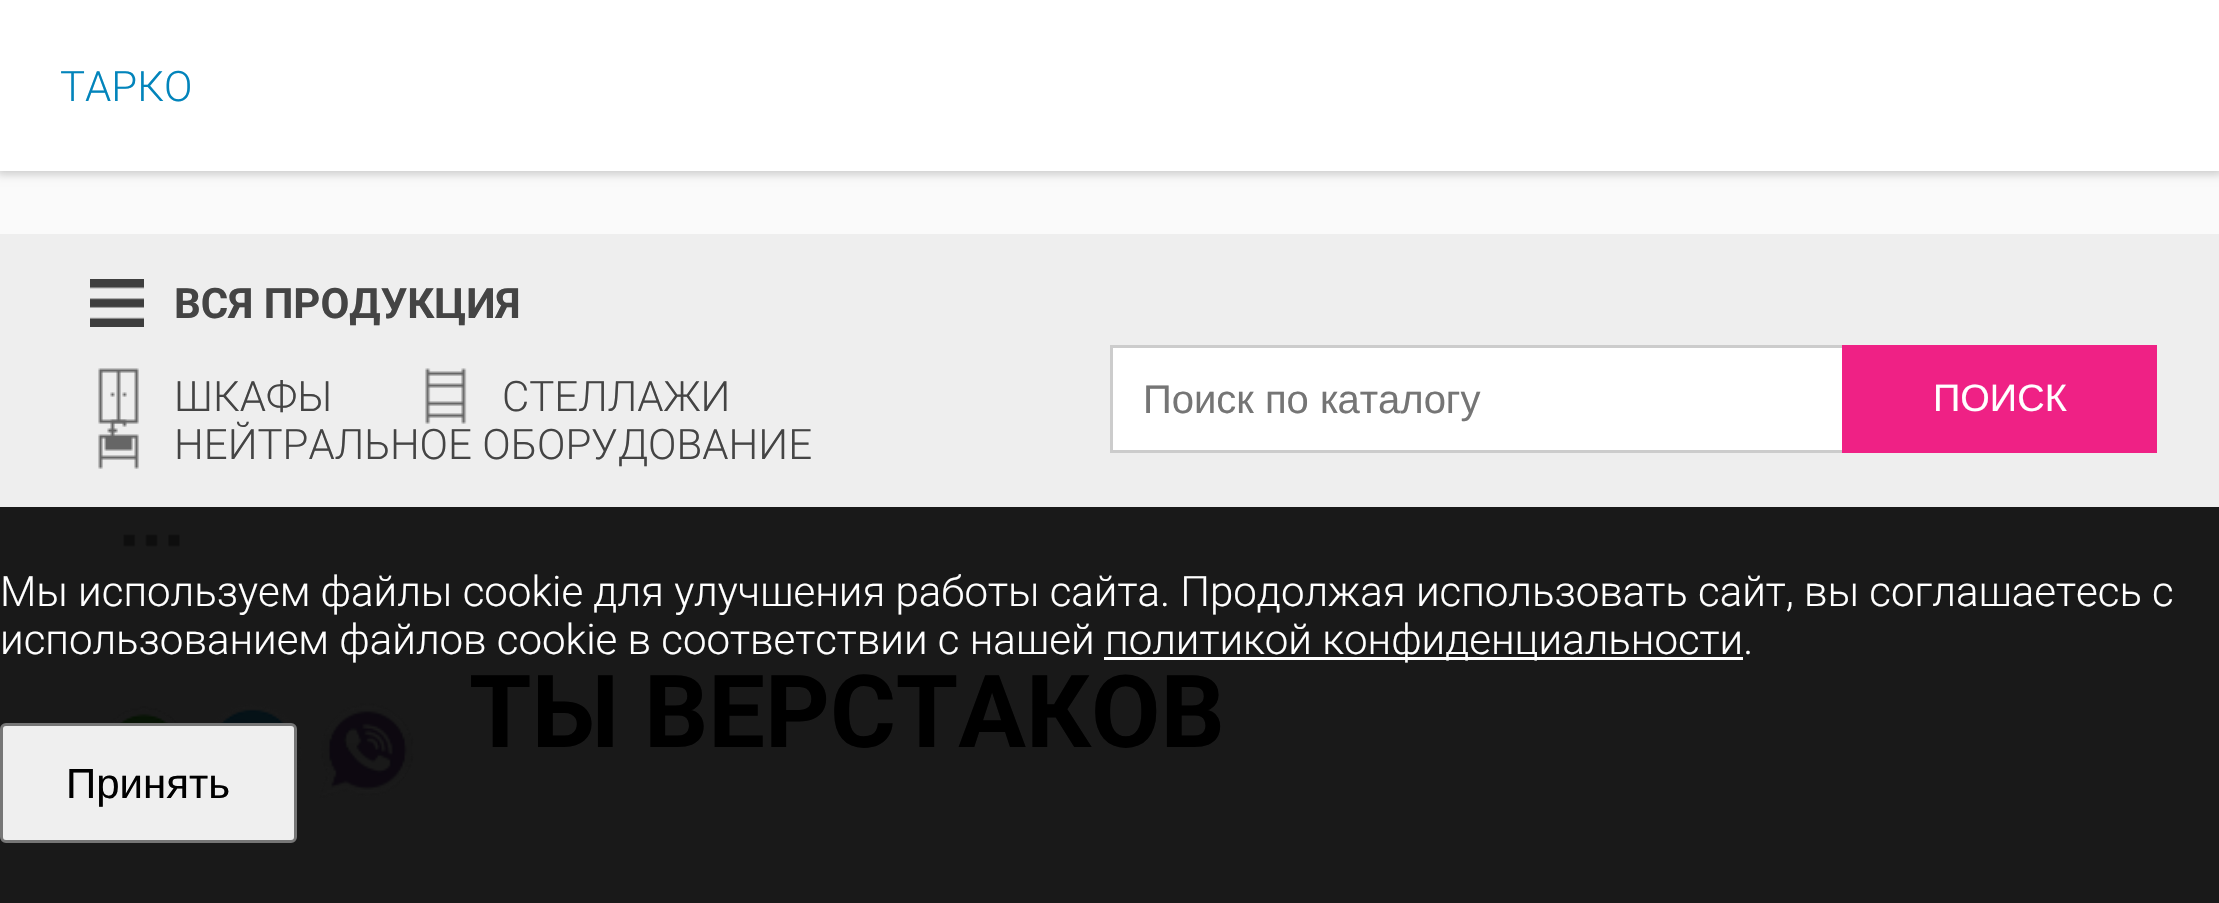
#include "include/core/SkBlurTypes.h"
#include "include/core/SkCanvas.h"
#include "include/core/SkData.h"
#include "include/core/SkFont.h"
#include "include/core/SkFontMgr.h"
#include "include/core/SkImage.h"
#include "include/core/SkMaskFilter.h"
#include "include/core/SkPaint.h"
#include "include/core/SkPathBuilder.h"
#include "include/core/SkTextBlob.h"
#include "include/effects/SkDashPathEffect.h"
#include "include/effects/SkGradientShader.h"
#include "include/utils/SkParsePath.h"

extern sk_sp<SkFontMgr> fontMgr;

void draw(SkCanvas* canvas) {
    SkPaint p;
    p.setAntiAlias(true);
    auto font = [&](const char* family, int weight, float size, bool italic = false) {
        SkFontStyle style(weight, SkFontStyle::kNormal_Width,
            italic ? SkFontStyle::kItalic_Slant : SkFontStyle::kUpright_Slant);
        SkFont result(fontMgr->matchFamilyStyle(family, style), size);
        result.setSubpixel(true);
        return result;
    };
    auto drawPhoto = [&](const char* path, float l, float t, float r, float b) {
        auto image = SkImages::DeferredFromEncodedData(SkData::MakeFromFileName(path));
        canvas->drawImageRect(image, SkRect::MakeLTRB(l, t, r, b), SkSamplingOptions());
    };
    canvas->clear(0xFF191919);
    p.setColor(0xFFFAFAFA);
    canvas->drawRect(SkRect::MakeLTRB(0, 171, 2219, 234), p);
    p.setColor(0x33000000);
    p.setMaskFilter(SkMaskFilter::MakeBlur(kNormal_SkBlurStyle, 4.5f));
    canvas->drawRect(SkRect::MakeLTRB(-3, -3, 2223, 174), p);
    p.setMaskFilter(nullptr);
    p.setColor(0xFFFFFFFF);
    canvas->drawRect(SkRect::MakeLTRB(0, 0, 2219, 171), p);
    auto font1 = font("Roboto", 300, 42);
    p.setColor(0xFF0284BB);
    canvas->drawString("ТАРКО", 60, 101, font1, p);
    p.setColor(0xFFEEEEEE);
    canvas->drawRect(SkRect::MakeLTRB(0, 234, 2219, 507), p);
    drawPhoto("media/1.png", 90, 279, 144, 327);
    auto font2 = font("Roboto", 700, 42);
    p.setColor(0xFF444444);
    canvas->drawString("ВСЯ ПРОДУКЦИЯ", 174, 318, font2, p);
    drawPhoto("media/2.png", 98, 368, 139, 424);
    canvas->drawString("ШКАФЫ", 174, 411, font1, p);
    drawPhoto("media/3.png", 425, 368, 467, 424);
    canvas->drawString("СТЕЛЛАЖИ", 502, 411, font1, p);
    drawPhoto("media/4.png", 98, 419, 139, 469);
    canvas->drawString("НЕЙТРАЛЬНОЕ ОБОРУДОВАНИЕ", 174, 459, font1, p);
    drawPhoto("media/5.png", 123, 534, 180, 547);
    p.setColor(0xFFFFFFFF);
    canvas->drawRect(SkRect::MakeLTRB(1111.5f, 346.5f, 1843.5f, 451.5f), p);
    p.setStyle(SkPaint::kStroke_Style);
    p.setStrokeWidth(3);
    p.setColor(0xFFCCCCCC);
    canvas->drawRect(SkRect::MakeLTRB(1111.5f, 346.5f, 1843.5f, 451.5f), p);
    auto font3 = font("Liberation Sans", 400, 40);
    p.setStyle(SkPaint::kFill_Style);
    p.setColor(0xFF757575);
    canvas->drawString("Поиск по каталогу", 1143, 413, font3, p);
    p.setColor(0xFFEF2185);
    canvas->drawRect(SkRect::MakeLTRB(1842, 345, 2157, 453), p);
    auto font4 = font("Liberation Sans", 400, 38);
    p.setColor(0xFFFFFFFF);
    canvas->drawString("ПОИСК", 1933, 411, font4, p);
    canvas->drawString("Мы используем файлы cookie для улучшения работы сайта. Продолжая использовать сайт, вы соглашаетесь с", 0, 606, font1, p);
    canvas->drawString("использованием файлов cookie в соответствии с нашей", 0, 654, font1, p);
    canvas->drawRect(SkRect::MakeLTRB(1104, 657, 1743, 660), p);
    canvas->drawString("политикой конфиденциальности.", 1105, 654, font1, p);
    drawPhoto("media/7.png", 214, 704, 302, 774);
    p.setColor(0xFFEFEFEF);
    canvas->drawRoundRect(SkRect::MakeLTRB(1.5f, 724.5f, 295.5f, 841.5f), 4.5f, 4.5f, p);
    p.setStyle(SkPaint::kStroke_Style);
    p.setColor(0xFF767676);
    canvas->drawRoundRect(SkRect::MakeLTRB(1.5f, 724.5f, 295.5f, 841.5f), 4.5f, 4.5f, p);
    auto font5 = font("Liberation Sans", 400, 42);
    p.setStyle(SkPaint::kFill_Style);
    p.setColor(0xFF000000);
    canvas->drawString("Принять", 66, 798, font5, p);
    drawPhoto("media/6.png", 110, 705, 179, 723);
    drawPhoto("media/8.png", 319, 703, 415, 799);
    auto font6 = font("Roboto", 700, 100.75f);
    canvas->drawString("ТЫ ВЕРСТАКОВ", 469, 747, font6, p);
}
